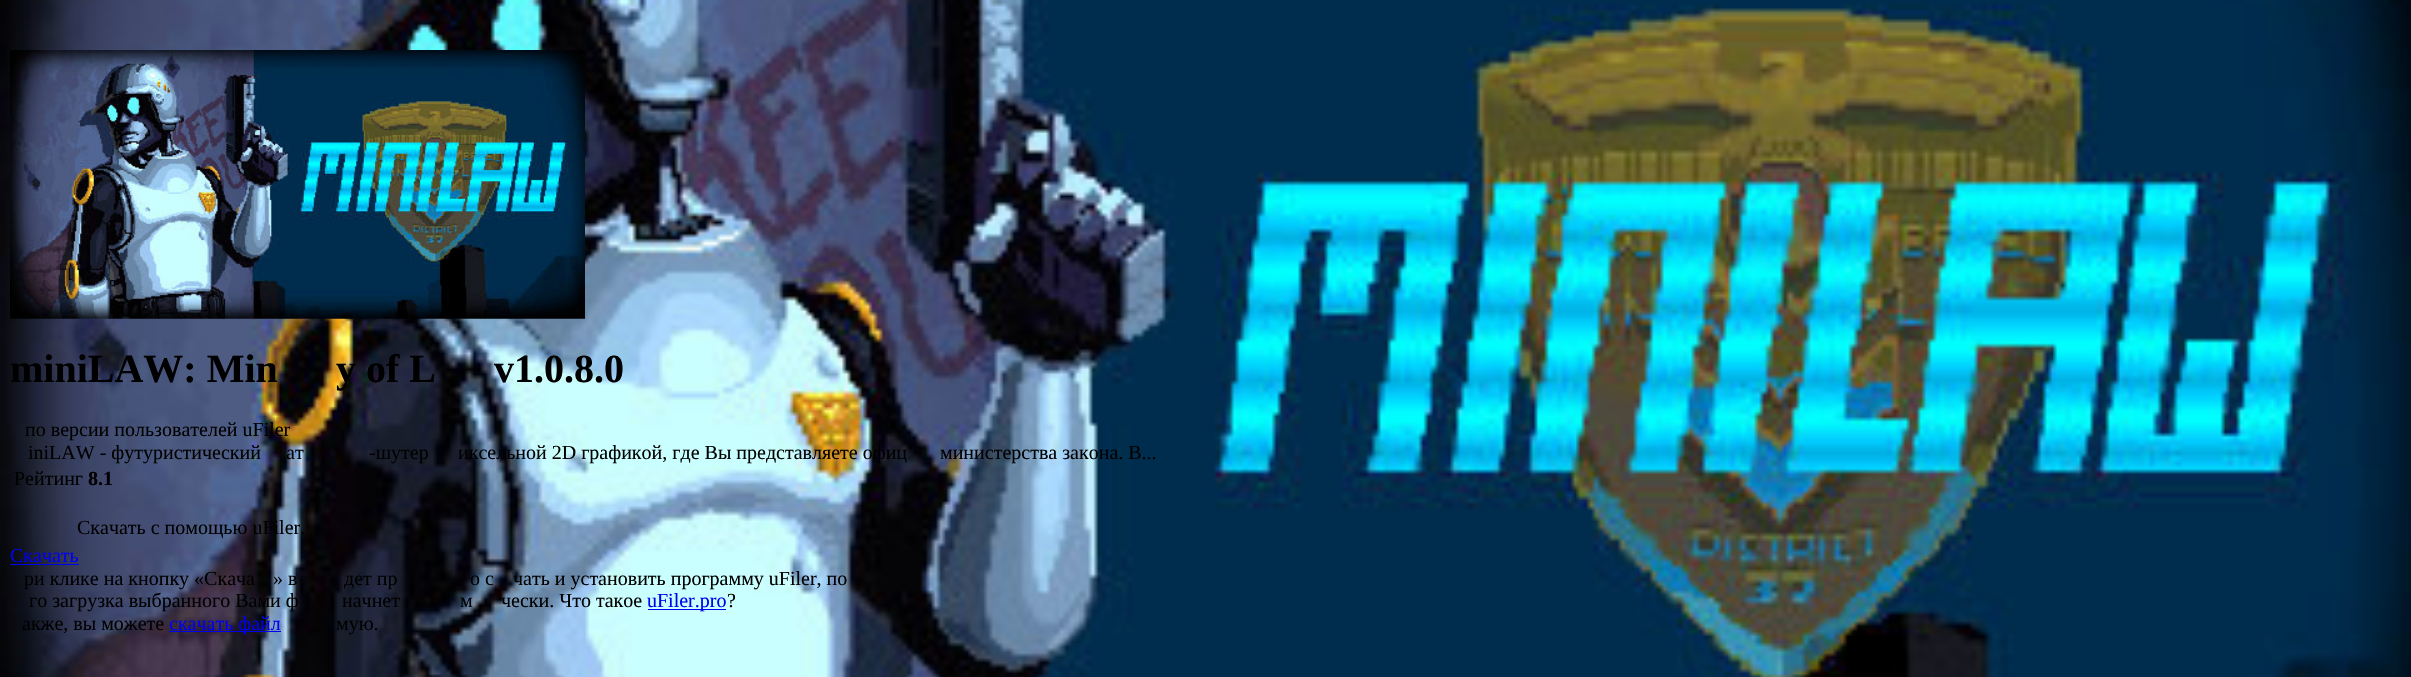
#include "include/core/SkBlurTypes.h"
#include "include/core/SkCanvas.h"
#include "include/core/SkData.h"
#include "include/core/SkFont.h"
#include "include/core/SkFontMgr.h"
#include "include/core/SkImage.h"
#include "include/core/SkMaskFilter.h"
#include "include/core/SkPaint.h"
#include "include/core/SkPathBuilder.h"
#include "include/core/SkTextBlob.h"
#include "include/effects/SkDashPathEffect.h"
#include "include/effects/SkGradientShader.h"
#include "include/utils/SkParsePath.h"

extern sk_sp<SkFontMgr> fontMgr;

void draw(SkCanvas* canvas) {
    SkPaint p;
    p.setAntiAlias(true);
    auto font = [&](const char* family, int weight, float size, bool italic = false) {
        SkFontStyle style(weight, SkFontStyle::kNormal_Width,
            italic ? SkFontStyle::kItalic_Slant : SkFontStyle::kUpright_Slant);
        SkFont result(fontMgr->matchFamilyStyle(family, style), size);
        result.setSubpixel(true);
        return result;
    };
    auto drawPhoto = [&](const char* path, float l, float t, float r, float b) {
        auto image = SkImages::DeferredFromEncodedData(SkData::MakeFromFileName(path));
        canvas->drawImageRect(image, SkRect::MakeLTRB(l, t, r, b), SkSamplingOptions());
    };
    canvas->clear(0xFFFFFFFF);
    drawPhoto("media/1.png", 0, 0, 2411, 677);
    drawPhoto("media/2.png", 10, 50, 585, 319);
    auto font1 = font("Liberation Serif", 700, 40);
    p.setColor(0xFF000000);
    {
        const struct { const char* s; float x, y; } items[] = {
            {"miniLAW: Min", 10, 382},
            {"y of L", 336, 382},
            {"v1.0.8.0", 494, 382},
        };
        for (auto [s, x, y] : items) {
            canvas->drawString(s, x, y, font1, p);
        }
    }
    auto font2 = font("Liberation Serif", 400, 20);
    {
        const struct { const char* s; float x, y; } items[] = {
            {"по версии пользователей uFiler", 25, 436},
            {"iniLAW - футуристический", 28, 459},
            {"ат", 286, 459},
            {"-шутер", 369, 459},
            {"иксельной 2D графикой, где Вы представляете офиц", 458, 459},
            {"министерства закона. В...", 940, 459},
            {"Рейтинг", 14, 485},
        };
        for (auto [s, x, y] : items) {
            canvas->drawString(s, x, y, font2, p);
        }
    }
    auto font3 = font("Liberation Serif", 700, 20);
    canvas->drawString("8.1", 88, 485, font3, p);
    canvas->drawString("Скачать с помощью uFiler.", 77, 534, font2, p);
    p.setColor(0xFF0000EE);
    canvas->drawString("Скачать", 10, 562, font2, p);
    canvas->drawRect(SkRect::MakeLTRB(10, 564, 79, 565), p);
    p.setColor(0xFF000000);
    {
        const struct { const char* s; float x, y; } items[] = {
            {"ри клике на кнопку «Скача", 24, 585},
            {"» в", 273, 585},
            {"дет пр", 344, 585},
            {"о с", 470, 585},
            {"чать и установить программу uFiler, по", 513, 585},
            {"го загрузка выбранного Вами ф", 29, 607},
            {"начнет", 342, 607},
            {"м", 460, 607},
            {"чески. Что такое", 501, 607},
        };
        for (auto [s, x, y] : items) {
            canvas->drawString(s, x, y, font2, p);
        }
    }
    p.setColor(0xFF0000EE);
    canvas->drawRect(SkRect::MakeLTRB(648, 609, 726, 610), p);
    canvas->drawString("uFiler.pro", 647, 607, font2, p);
    p.setColor(0xFF000000);
    canvas->drawString("?", 727, 607, font2, p);
    canvas->drawString("акже, вы можете", 22, 630, font2, p);
    p.setColor(0xFF0000EE);
    canvas->drawRect(SkRect::MakeLTRB(169, 631, 281, 632), p);
    canvas->drawString("скачать файл", 169, 630, font2, p);
    p.setColor(0xFF000000);
    canvas->drawString("мую.", 336, 630, font2, p);
}
